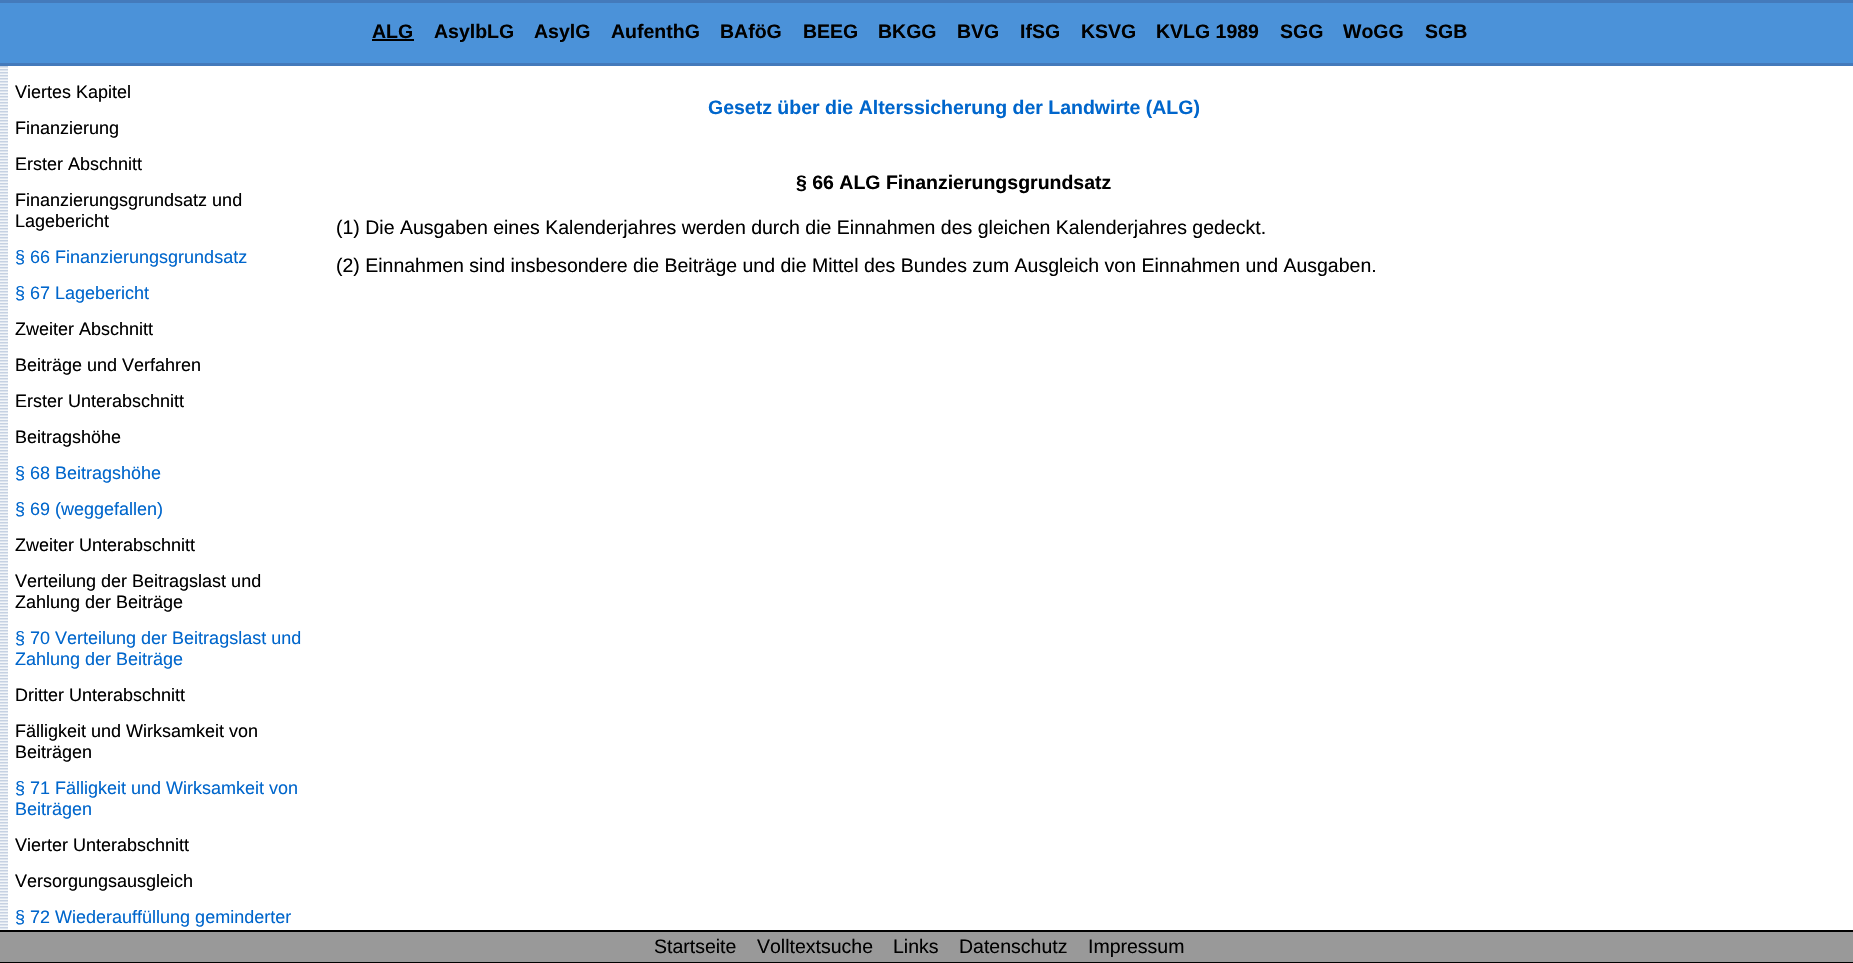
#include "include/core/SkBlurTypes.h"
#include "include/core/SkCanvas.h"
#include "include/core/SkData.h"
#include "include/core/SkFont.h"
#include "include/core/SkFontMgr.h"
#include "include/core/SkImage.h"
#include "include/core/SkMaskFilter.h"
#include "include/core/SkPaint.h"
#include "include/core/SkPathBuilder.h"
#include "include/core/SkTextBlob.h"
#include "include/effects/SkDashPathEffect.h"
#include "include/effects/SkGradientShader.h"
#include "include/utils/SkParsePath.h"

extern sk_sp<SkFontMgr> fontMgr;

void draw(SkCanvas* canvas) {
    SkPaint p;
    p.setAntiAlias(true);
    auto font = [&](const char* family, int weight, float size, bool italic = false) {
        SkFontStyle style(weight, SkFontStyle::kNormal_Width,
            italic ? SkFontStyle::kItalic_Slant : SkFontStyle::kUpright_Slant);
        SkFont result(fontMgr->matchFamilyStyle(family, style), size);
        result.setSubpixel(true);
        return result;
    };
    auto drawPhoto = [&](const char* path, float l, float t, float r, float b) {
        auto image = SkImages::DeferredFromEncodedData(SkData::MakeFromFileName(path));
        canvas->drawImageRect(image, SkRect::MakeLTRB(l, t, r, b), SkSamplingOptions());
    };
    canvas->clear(0xFFFFFFFF);
    {
        const struct { float l, t, r, b; SkColor color; } items[] = {
            {0, 3, 1853, 63, 0xFF4B92D9},
            {0, 0, 1853, 3, 0xFF447ABB},
            {0, 63, 1853, 66, 0xFF447ABB},
        };
        for (auto [l, t, r, b, color] : items) {
            p.setColor(color);
            canvas->drawRect(SkRect::MakeLTRB(l, t, r, b), p);
        }
    }
    auto font1 = font("Liberation Sans", 700, 19.5f);
    p.setColor(0xFF000000);
    canvas->drawString("ALG", 372, 38, font1, p);
    canvas->drawRect(SkRect::MakeLTRB(372, 39, 414, 41), p);
    {
        const struct { const char* s; float x, y; } items[] = {
            {"AsylbLG", 434, 38},
            {"AsylG", 534, 38},
            {"AufenthG", 611, 38},
            {"BAföG", 720, 38},
            {"BEEG", 803, 38},
            {"BKGG", 878, 38},
            {"BVG", 957, 38},
            {"IfSG", 1020, 38},
            {"KSVG", 1081, 38},
            {"KVLG 1989", 1156, 38},
            {"SGG", 1280, 38},
            {"WoGG", 1343, 38},
            {"SGB", 1425, 38},
        };
        for (auto [s, x, y] : items) {
            canvas->drawString(s, x, y, font1, p);
        }
    }
    drawPhoto("media/1.png", 0, 66, 8, 930);
    auto font2 = font("Liberation Sans", 400, 18);
    {
        const struct { const char* s; float x, y; } items[] = {
            {"Viertes Kapitel", 15, 98},
            {"Finanzierung", 15, 134},
            {"Erster Abschnitt", 15, 170},
            {"Finanzierungsgrundsatz und", 15, 206},
            {"Lagebericht", 15, 227},
        };
        for (auto [s, x, y] : items) {
            canvas->drawString(s, x, y, font2, p);
        }
    }
    p.setColor(0xFF0066CC);
    canvas->drawString("§ 66 Finanzierungsgrundsatz", 15, 263, font2, p);
    canvas->drawString("§ 67 Lagebericht", 15, 299, font2, p);
    p.setColor(0xFF000000);
    {
        const struct { const char* s; float x, y; } items[] = {
            {"Zweiter Abschnitt", 15, 335},
            {"Beiträge und Verfahren", 15, 371},
            {"Erster Unterabschnitt", 15, 407},
            {"Beitragshöhe", 15, 443},
        };
        for (auto [s, x, y] : items) {
            canvas->drawString(s, x, y, font2, p);
        }
    }
    p.setColor(0xFF0066CC);
    canvas->drawString("§ 68 Beitragshöhe", 15, 479, font2, p);
    canvas->drawString("§ 69 (weggefallen)", 15, 515, font2, p);
    p.setColor(0xFF000000);
    {
        const struct { const char* s; float x, y; } items[] = {
            {"Zweiter Unterabschnitt", 15, 551},
            {"Verteilung der Beitragslast und", 15, 587},
            {"Zahlung der Beiträge", 15, 608},
        };
        for (auto [s, x, y] : items) {
            canvas->drawString(s, x, y, font2, p);
        }
    }
    p.setColor(0xFF0066CC);
    canvas->drawString("§ 70 Verteilung der Beitragslast und", 15, 644, font2, p);
    canvas->drawString("Zahlung der Beiträge", 15, 665, font2, p);
    p.setColor(0xFF000000);
    {
        const struct { const char* s; float x, y; } items[] = {
            {"Dritter Unterabschnitt", 15, 701},
            {"Fälligkeit und Wirksamkeit von", 15, 737},
            {"Beiträgen", 15, 758},
        };
        for (auto [s, x, y] : items) {
            canvas->drawString(s, x, y, font2, p);
        }
    }
    p.setColor(0xFF0066CC);
    canvas->drawString("§ 71 Fälligkeit und Wirksamkeit von", 15, 794, font2, p);
    canvas->drawString("Beiträgen", 15, 815, font2, p);
    p.setColor(0xFF000000);
    canvas->drawString("Vierter Unterabschnitt", 15, 851, font2, p);
    canvas->drawString("Versorgungsausgleich", 15, 887, font2, p);
    p.setColor(0xFF0066CC);
    canvas->drawString("§ 72 Wiederauffüllung geminderter", 15, 923, font2, p);
    canvas->drawString("Gesetz über die Alterssicherung der Landwirte (ALG)", 708, 114, font1, p);
    p.setColor(0xFF000000);
    canvas->drawString("§ 66 ALG Finanzierungsgrundsatz", 796, 189, font1, p);
    auto font3 = font("Liberation Sans", 400, 19.5f);
    canvas->drawString("(1) Die Ausgaben eines Kalenderjahres werden durch die Einnahmen des gleichen Kalenderjahres gedeckt.", 336, 234, font3, p);
    canvas->drawString("(2) Einnahmen sind insbesondere die Beiträge und die Mittel des Bundes zum Ausgleich von Einnahmen und Ausgaben.", 336, 272, font3, p);
    {
        const struct { float l, t, r, b; SkColor color; } items[] = {
            {0, 932, 1853, 962, 0xFF999999},
            {0, 930, 1853, 932, 0xFF000000},
            {0, 962, 1853, 963, 0xFF000000},
        };
        for (auto [l, t, r, b, color] : items) {
            p.setColor(color);
            canvas->drawRect(SkRect::MakeLTRB(l, t, r, b), p);
        }
    }
    {
        const struct { const char* s; float x, y; } items[] = {
            {"Startseite", 654, 953},
            {"Volltextsuche", 757, 953},
            {"Links", 893, 953},
            {"Datenschutz", 959, 953},
            {"Impressum", 1088, 953},
        };
        for (auto [s, x, y] : items) {
            canvas->drawString(s, x, y, font3, p);
        }
    }
}
